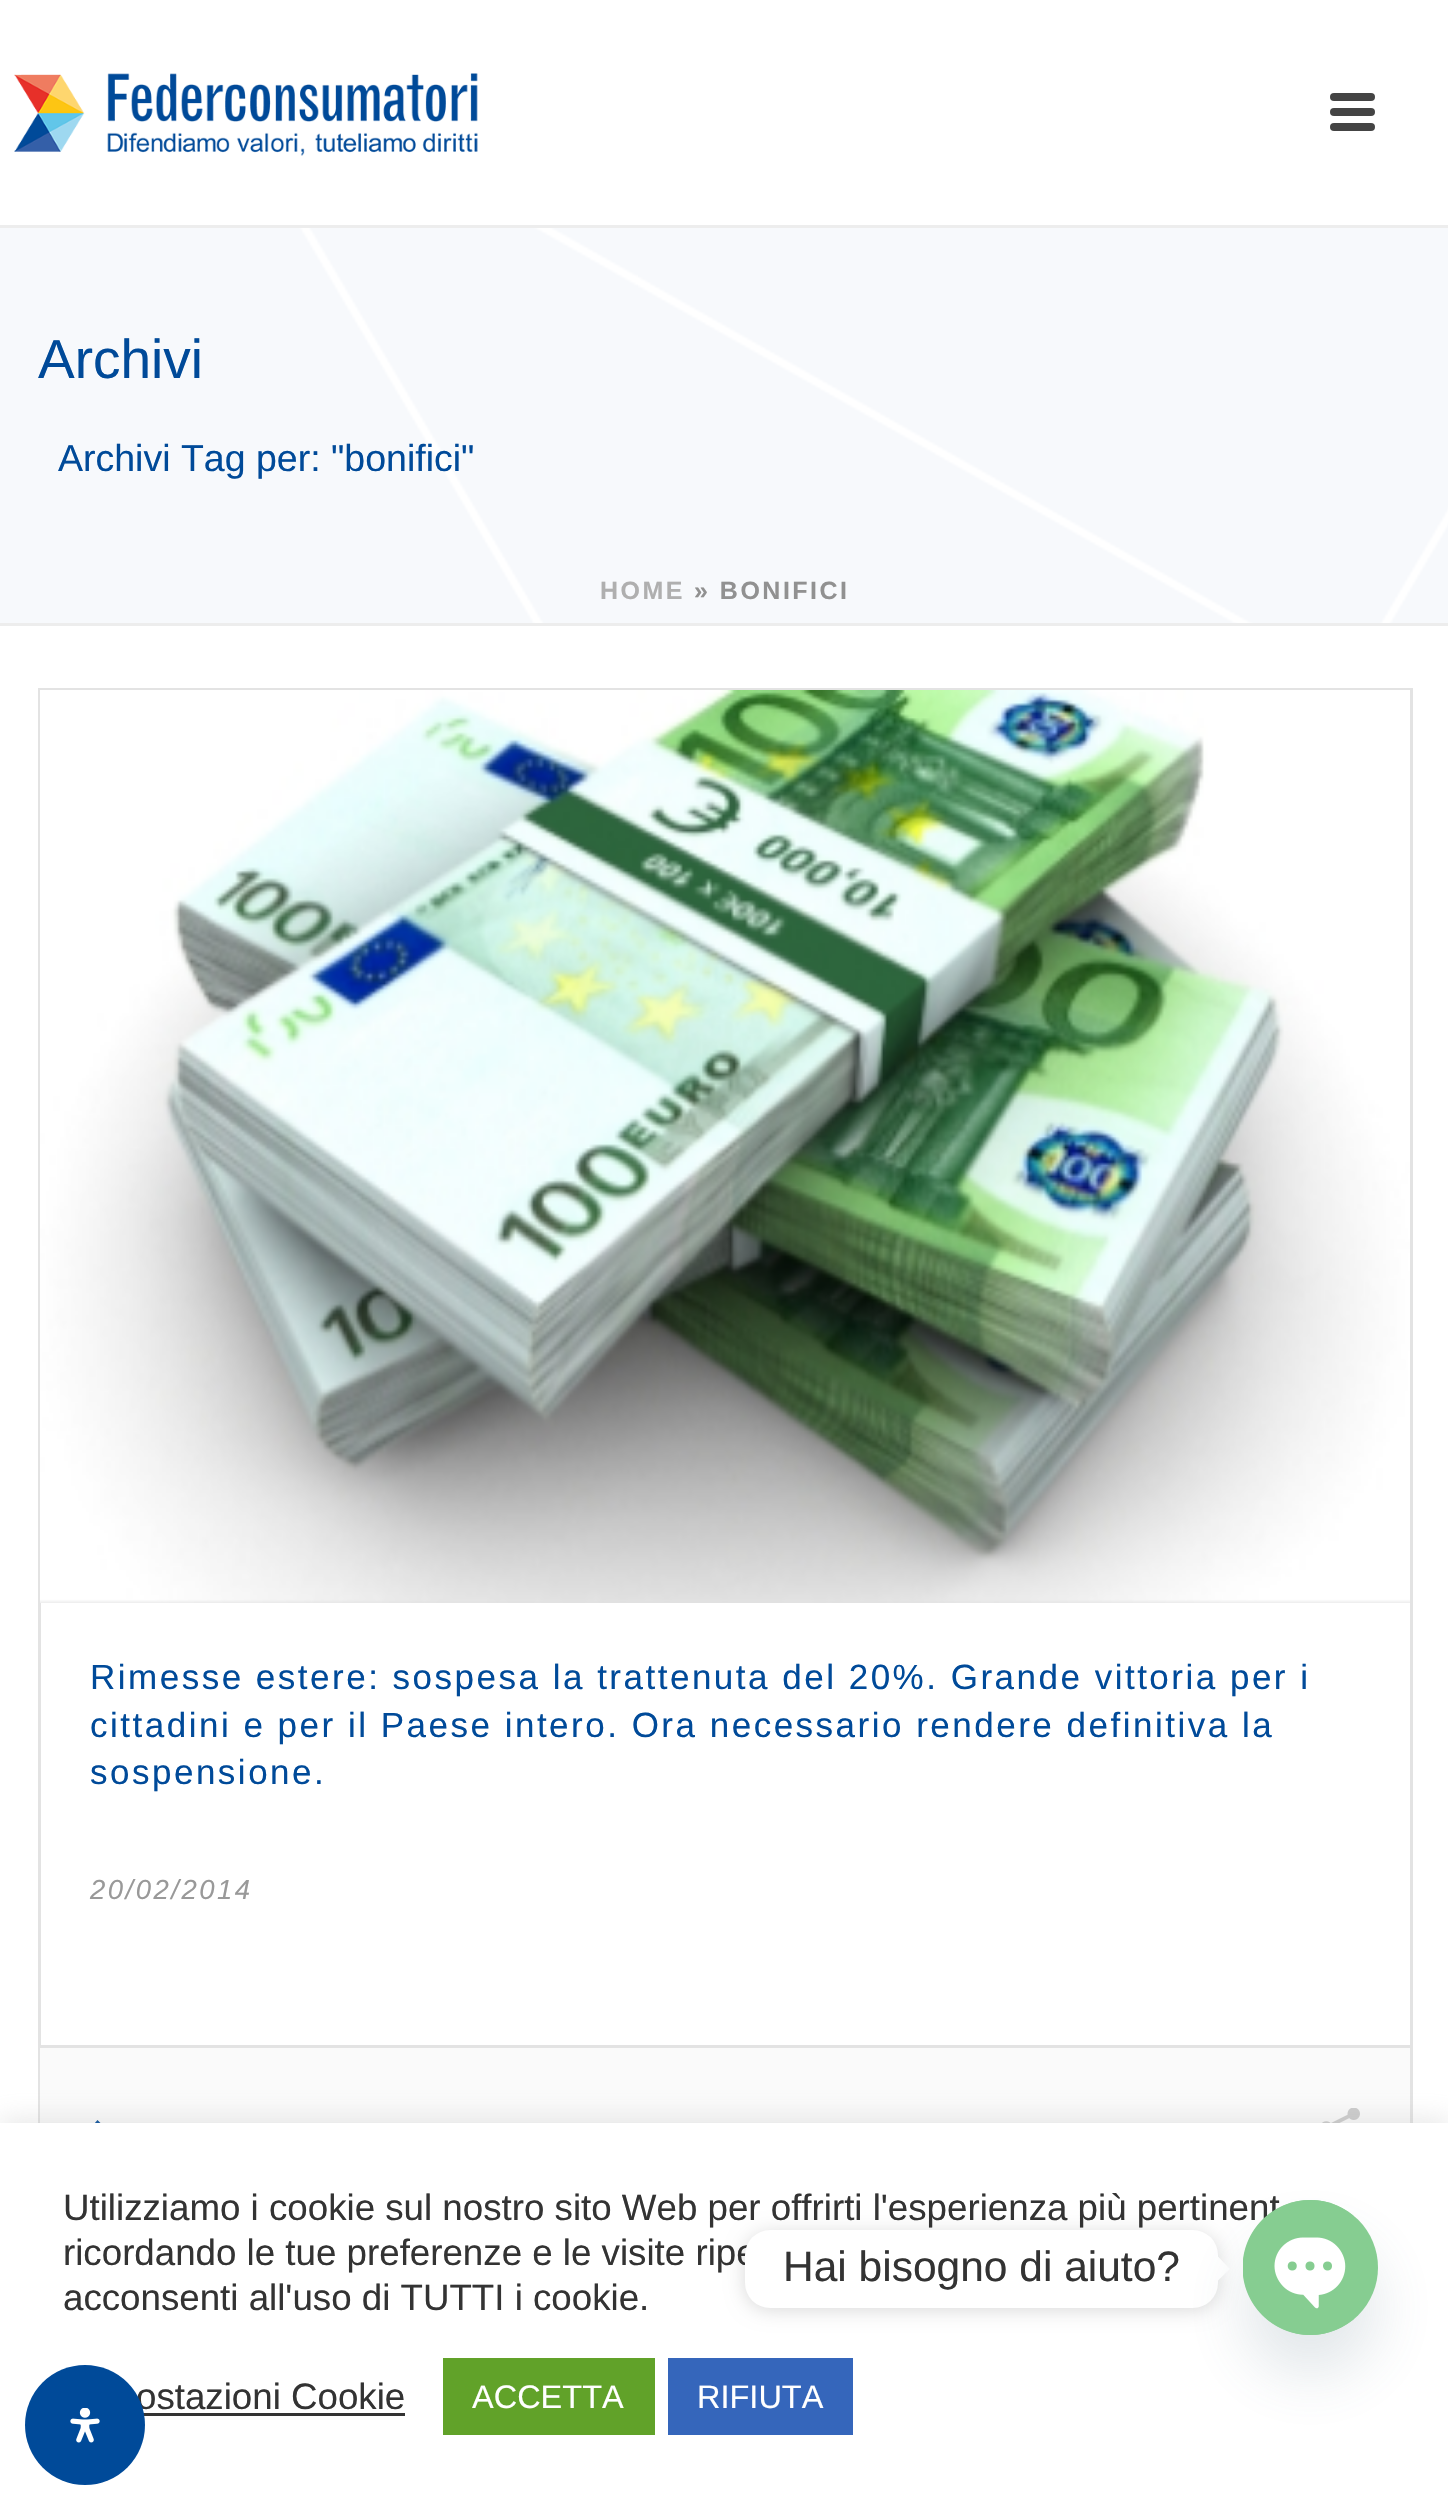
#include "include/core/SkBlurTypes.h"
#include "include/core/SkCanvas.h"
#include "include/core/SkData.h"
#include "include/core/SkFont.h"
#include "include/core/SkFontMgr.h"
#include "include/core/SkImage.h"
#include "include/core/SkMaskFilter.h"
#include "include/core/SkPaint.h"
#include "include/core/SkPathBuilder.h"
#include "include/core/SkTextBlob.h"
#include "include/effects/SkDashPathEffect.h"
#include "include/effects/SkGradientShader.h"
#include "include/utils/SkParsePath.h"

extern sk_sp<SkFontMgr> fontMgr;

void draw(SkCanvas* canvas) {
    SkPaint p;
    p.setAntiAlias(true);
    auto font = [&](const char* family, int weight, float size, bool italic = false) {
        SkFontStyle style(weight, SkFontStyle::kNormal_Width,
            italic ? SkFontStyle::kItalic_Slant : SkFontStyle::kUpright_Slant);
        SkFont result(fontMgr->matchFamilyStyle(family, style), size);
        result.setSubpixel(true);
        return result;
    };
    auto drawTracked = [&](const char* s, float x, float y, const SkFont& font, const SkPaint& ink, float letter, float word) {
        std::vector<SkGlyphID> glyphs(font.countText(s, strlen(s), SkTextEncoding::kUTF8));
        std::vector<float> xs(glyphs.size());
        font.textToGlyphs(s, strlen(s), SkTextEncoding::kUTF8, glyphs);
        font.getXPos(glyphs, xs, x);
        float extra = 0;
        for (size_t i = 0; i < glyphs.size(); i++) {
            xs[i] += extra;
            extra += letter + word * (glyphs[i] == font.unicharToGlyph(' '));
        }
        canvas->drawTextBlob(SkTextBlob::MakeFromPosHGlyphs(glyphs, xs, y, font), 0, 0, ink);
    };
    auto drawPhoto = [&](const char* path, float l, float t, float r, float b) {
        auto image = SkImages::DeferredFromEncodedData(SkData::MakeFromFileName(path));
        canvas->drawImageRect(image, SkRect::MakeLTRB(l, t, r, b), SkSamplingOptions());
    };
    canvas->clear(0xFFF7F9FC);
    drawPhoto("media/1.png", 299, 228, 1448, 623);
    {
        const struct { float l, t, r, b; SkColor color; } items[] = {
            {0, 623, 1448, 626, 0xFFEDEDED},
            {0, 225, 1448, 228, 0xFFEDEDED},
            {0, 0, 1448, 225, 0xFFFFFFFF},
        };
        for (auto [l, t, r, b, color] : items) {
            p.setColor(color);
            canvas->drawRect(SkRect::MakeLTRB(l, t, r, b), p);
        }
    }
    drawPhoto("media/2.png", 14, 73, 478, 156);
    p.setColor(0xFF444444);
    canvas->drawRoundRect(SkRect::MakeLTRB(1330, 93, 1375, 101), 4, 4, p);
    canvas->drawRoundRect(SkRect::MakeLTRB(1330, 108, 1375, 116), 4, 4, p);
    canvas->drawRoundRect(SkRect::MakeLTRB(1330, 123, 1375, 131), 4, 4, p);
    auto font1 = font("Liberation Sans", 400, 55);
    p.setColor(0xFF004A99);
    canvas->drawString("Archivi", 38, 378, font1, p);
    auto font2 = font("Liberation Sans", 400, 37.5f);
    canvas->drawString("Archivi Tag per: \"bonifici\"", 58, 471, font2, p);
    auto font3 = font("Liberation Sans", 700, 25);
    p.setColor(0xFFAFAFAF);
    drawTracked("HOME", 600, 599, font3, p, 2.5f, 0);
    p.setColor(0xFF919191);
    drawTracked("» BONIFICI", 694, 599, font3, p, 2.5f, 0);
    p.setColor(0xFFFFFFFF);
    canvas->drawRect(SkRect::MakeLTRB(0, 626, 1448, 2123), p);
    p.setStyle(SkPaint::kStroke_Style);
    p.setStrokeWidth(3);
    p.setColor(0xFFE3E3E3);
    canvas->drawRect(SkRect::MakeLTRB(39.5f, 689.5f, 1411.5f, 2206.5f), p);
    p.setStyle(SkPaint::kFill_Style);
    p.setColor(0xFFE0E0E0);
    canvas->drawRect(SkRect::MakeLTRB(40, 1599, 1410, 1603), p);
    drawPhoto("media/3.png", 40, 690, 1410, 1603);
    auto font4 = font("Liberation Sans", 400, 35);
    p.setColor(0xFF004A99);
    {
        const struct { const char* s; float x, y; } items[] = {
            {"Rimesse estere: sospesa la trattenuta del 20%. Grande vittoria per i", 90, 1689},
            {"cittadini e per il Paese intero. Ora necessario rendere definitiva la", 90, 1737},
            {"sospensione.", 90, 1784},
        };
        for (auto [s, x, y] : items) {
            drawTracked(s, x, y, font4, p, 2.5f, 0);
        }
    }
    auto font5 = font("Liberation Sans", 400, 27.5f, true);
    p.setColor(0xFF999999);
    drawTracked("20/02/2014", 90, 1899, font5, p, 2.5f, 0);
    p.setColor(0xFFFAFAFA);
    canvas->drawRect(SkRect::MakeLTRB(40, 2048, 1410, 2123), p);
    p.setColor(0xFFE3E3E3);
    canvas->drawRect(SkRect::MakeLTRB(40, 2045, 1410, 2048), p);
    drawPhoto("media/4.png", 1322, 2108, 1360, 2123);
    p.setColor(0xFF004A99);
    canvas->drawPath(SkPathBuilder().moveTo(97.5f, 2120).lineTo(94, 2124).lineTo(100, 2130).lineTo(94, 2136).lineTo(97.5f, 2140).lineTo(107.5f, 2130).close().detach(), p);
    p.setColor(0x4DACABAB);
    p.setMaskFilter(SkMaskFilter::MakeBlur(kNormal_SkBlurStyle, 12.5f));
    canvas->drawRect(SkRect::MakeLTRB(0, 2120, 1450, 2508), p);
    p.setMaskFilter(nullptr);
    p.setColor(0xFFFFFFFF);
    canvas->drawRect(SkRect::MakeLTRB(0, 2123, 1448, 2510), p);
    auto font6 = font("Liberation Sans", 400, 36.7f);
    p.setColor(0xFF333333);
    {
        const struct { const char* s; float x, y; } items[] = {
            {"Utilizziamo i cookie sul nostro sito Web per offrirti l'esperienza più pertinent", 63, 2220},
            {"ricordando le tue preferenze e le visite ripe", 63, 2265},
            {"acconsenti all'uso di TUTTI i cookie.", 63, 2310},
            {"ostazioni Cookie", 136, 2409},
        };
        for (auto [s, x, y] : items) {
            canvas->drawString(s, x, y, font6, p);
        }
    }
    canvas->drawRect(SkRect::MakeLTRB(143, 2413, 405, 2416), p);
    p.setColor(0xFF61A229);
    canvas->drawRect(SkRect::MakeLTRB(443, 2358, 655, 2435), p);
    auto font7 = font("Liberation Sans", 400, 32.5f);
    p.setColor(0xFFFFFFFF);
    canvas->drawString("ACCETTA", 472, 2408, font7, p);
    p.setColor(0xFF3566BB);
    canvas->drawRect(SkRect::MakeLTRB(668, 2358, 853, 2435), p);
    p.setColor(0xFFFFFFFF);
    canvas->drawString("RIFIUTA", 697, 2408, font7, p);
    p.setColor(0x26000000);
    p.setMaskFilter(SkMaskFilter::MakeBlur(kNormal_SkBlurStyle, 9.5f));
    canvas->drawRoundRect(SkRect::MakeLTRB(745, 2233, 1218, 2310), 25, 25, p);
    p.setMaskFilter(nullptr);
    p.setColor(0xFFFFFFFF);
    canvas->drawRoundRect(SkRect::MakeLTRB(745, 2230, 1218, 2308), 25, 25, p);
    auto font8 = font("Liberation Sans", 400, 42.5f);
    p.setColor(0xFF333333);
    canvas->drawString("Hai bisogno di aiuto?", 783, 2281, font8, p);
    p.setColor(0xFFFFFFFF);
    canvas->drawPath(SkPathBuilder().moveTo(1217.5f, 2281).lineTo(1217.5f, 2256).lineTo(1230, 2269).close().detach(), p);
    p.setColor(0x2949687E);
    p.setMaskFilter(SkMaskFilter::MakeBlur(kNormal_SkBlurStyle, 30));
    canvas->drawRoundRect(SkRect::MakeLTRB(1243, 2240, 1378, 2375), 67.5f, 67.5f, p);
    p.setMaskFilter(nullptr);
    p.setColor(0xFF86CD91);
    canvas->drawCircle(1310.5f, 2267.5f, 67.5f, p);
    drawPhoto("media/5.png", 1243, 2200, 1354, 2335);
    p.setColor(0xFF004A99);
    canvas->drawCircle(85, 2425, 60, p);
    drawPhoto("media/6.png", 70, 2408, 100, 2443);
}
